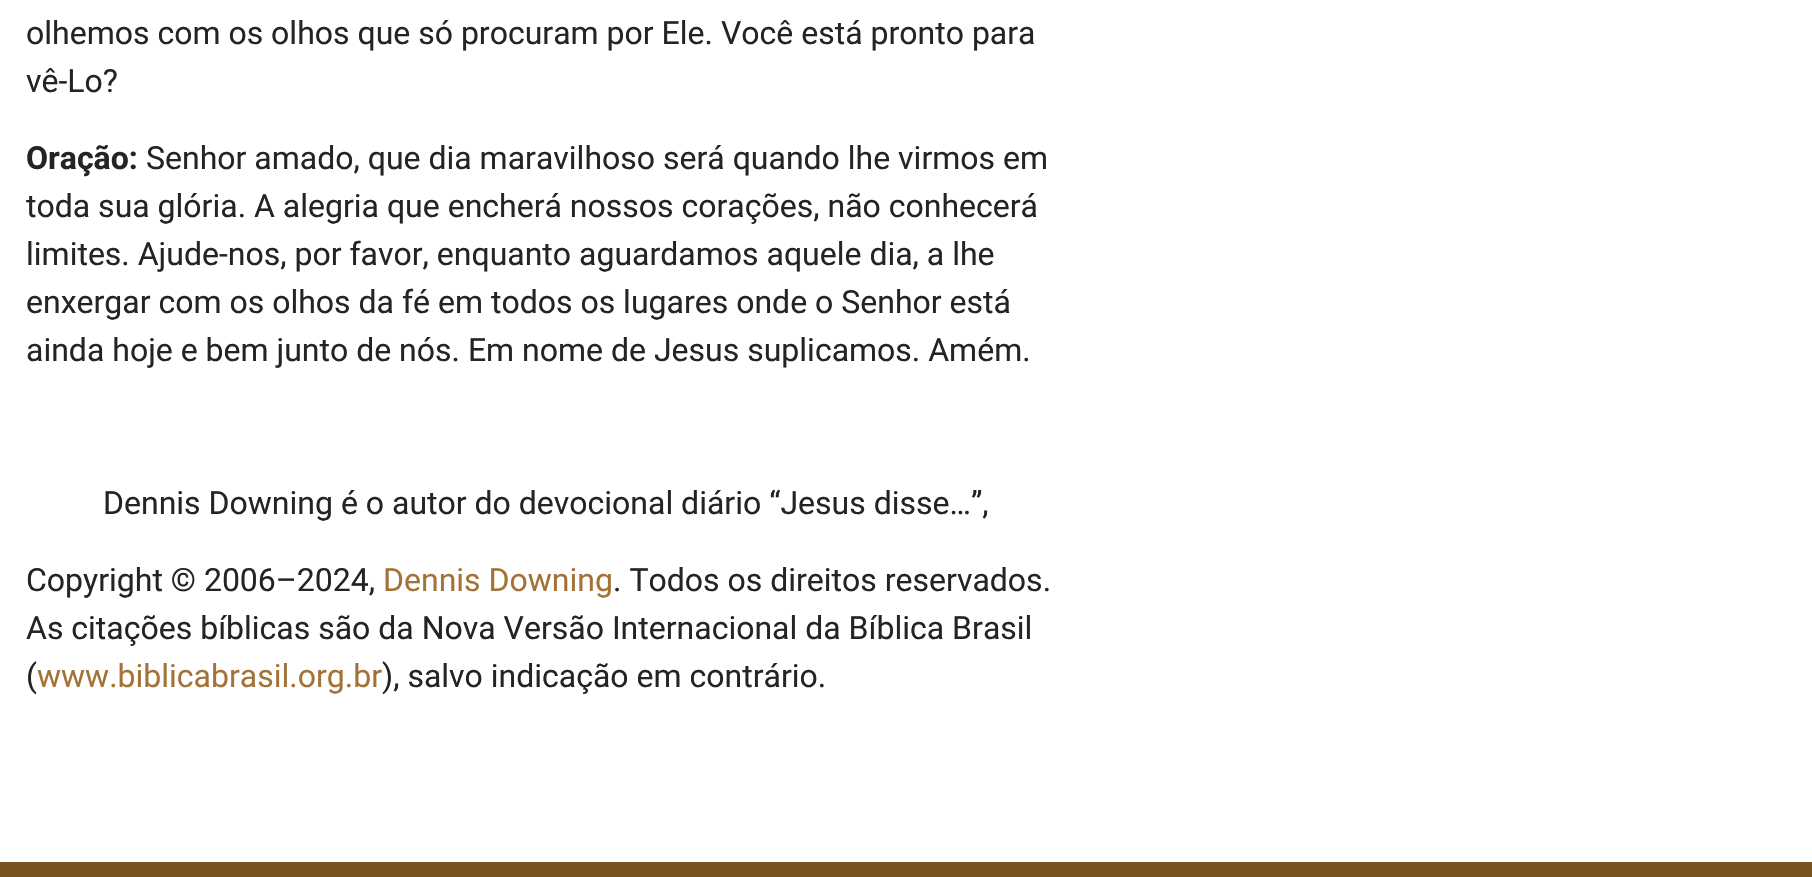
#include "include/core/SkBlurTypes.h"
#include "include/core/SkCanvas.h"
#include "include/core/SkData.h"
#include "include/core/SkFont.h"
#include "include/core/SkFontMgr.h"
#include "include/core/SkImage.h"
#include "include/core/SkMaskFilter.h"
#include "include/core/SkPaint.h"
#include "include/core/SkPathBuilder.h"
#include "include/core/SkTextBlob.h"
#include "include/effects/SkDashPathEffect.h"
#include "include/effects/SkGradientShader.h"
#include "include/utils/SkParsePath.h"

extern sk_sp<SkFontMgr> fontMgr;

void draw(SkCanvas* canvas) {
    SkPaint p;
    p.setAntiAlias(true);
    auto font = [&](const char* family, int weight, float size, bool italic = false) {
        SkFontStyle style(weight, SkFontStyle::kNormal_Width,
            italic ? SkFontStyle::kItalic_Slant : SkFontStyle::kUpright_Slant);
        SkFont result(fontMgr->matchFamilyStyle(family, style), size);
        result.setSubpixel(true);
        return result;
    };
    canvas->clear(0xFFFFFFFF);
    auto font1 = font("Roboto", 400, 32);
    p.setColor(0xFF242424);
    canvas->drawString("olhemos com os olhos que só procuram por Ele. Você está pronto para", 26, 44, font1, p);
    canvas->drawString("vê-Lo?", 26, 92, font1, p);
    auto font2 = font("Roboto", 700, 32);
    canvas->drawString("Oração:", 26, 169, font2, p);
    {
        const struct { const char* s; float x, y; } items[] = {
            {"Senhor amado, que dia maravilhoso será quando lhe virmos em", 146, 169},
            {"toda sua glória. A alegria que encherá nossos corações, não conhecerá", 26, 217},
            {"limites. Ajude-nos, por favor, enquanto aguardamos aquele dia, a lhe", 26, 265},
            {"enxergar com os olhos da fé em todos os lugares onde o Senhor está", 26, 313},
            {"ainda hoje e bem junto de nós. Em nome de Jesus suplicamos. Amém.", 26, 361},
            {"Dennis Downing é o autor do devocional diário “Jesus disse…”,", 103, 514},
            {"Copyright © 2006–2024,", 26, 591},
        };
        for (auto [s, x, y] : items) {
            canvas->drawString(s, x, y, font1, p);
        }
    }
    p.setColor(0xFFA37237);
    canvas->drawString("Dennis Downing", 383, 591, font1, p);
    p.setColor(0xFF242424);
    {
        const struct { const char* s; float x, y; } items[] = {
            {". Todos os direitos reservados.", 613, 591},
            {"As citações bíblicas são da Nova Versão Internacional da Bíblica Brasil", 26, 639},
            {"(", 26, 687},
        };
        for (auto [s, x, y] : items) {
            canvas->drawString(s, x, y, font1, p);
        }
    }
    p.setColor(0xFFA37237);
    canvas->drawString("www.biblicabrasil.org.br", 37, 687, font1, p);
    p.setColor(0xFF242424);
    canvas->drawString("), salvo indicação em contrário.", 382, 687, font1, p);
    p.setColor(0xFF7A5323);
    canvas->drawRect(SkRect::MakeLTRB(0, 862, 1812, 877), p);
}
